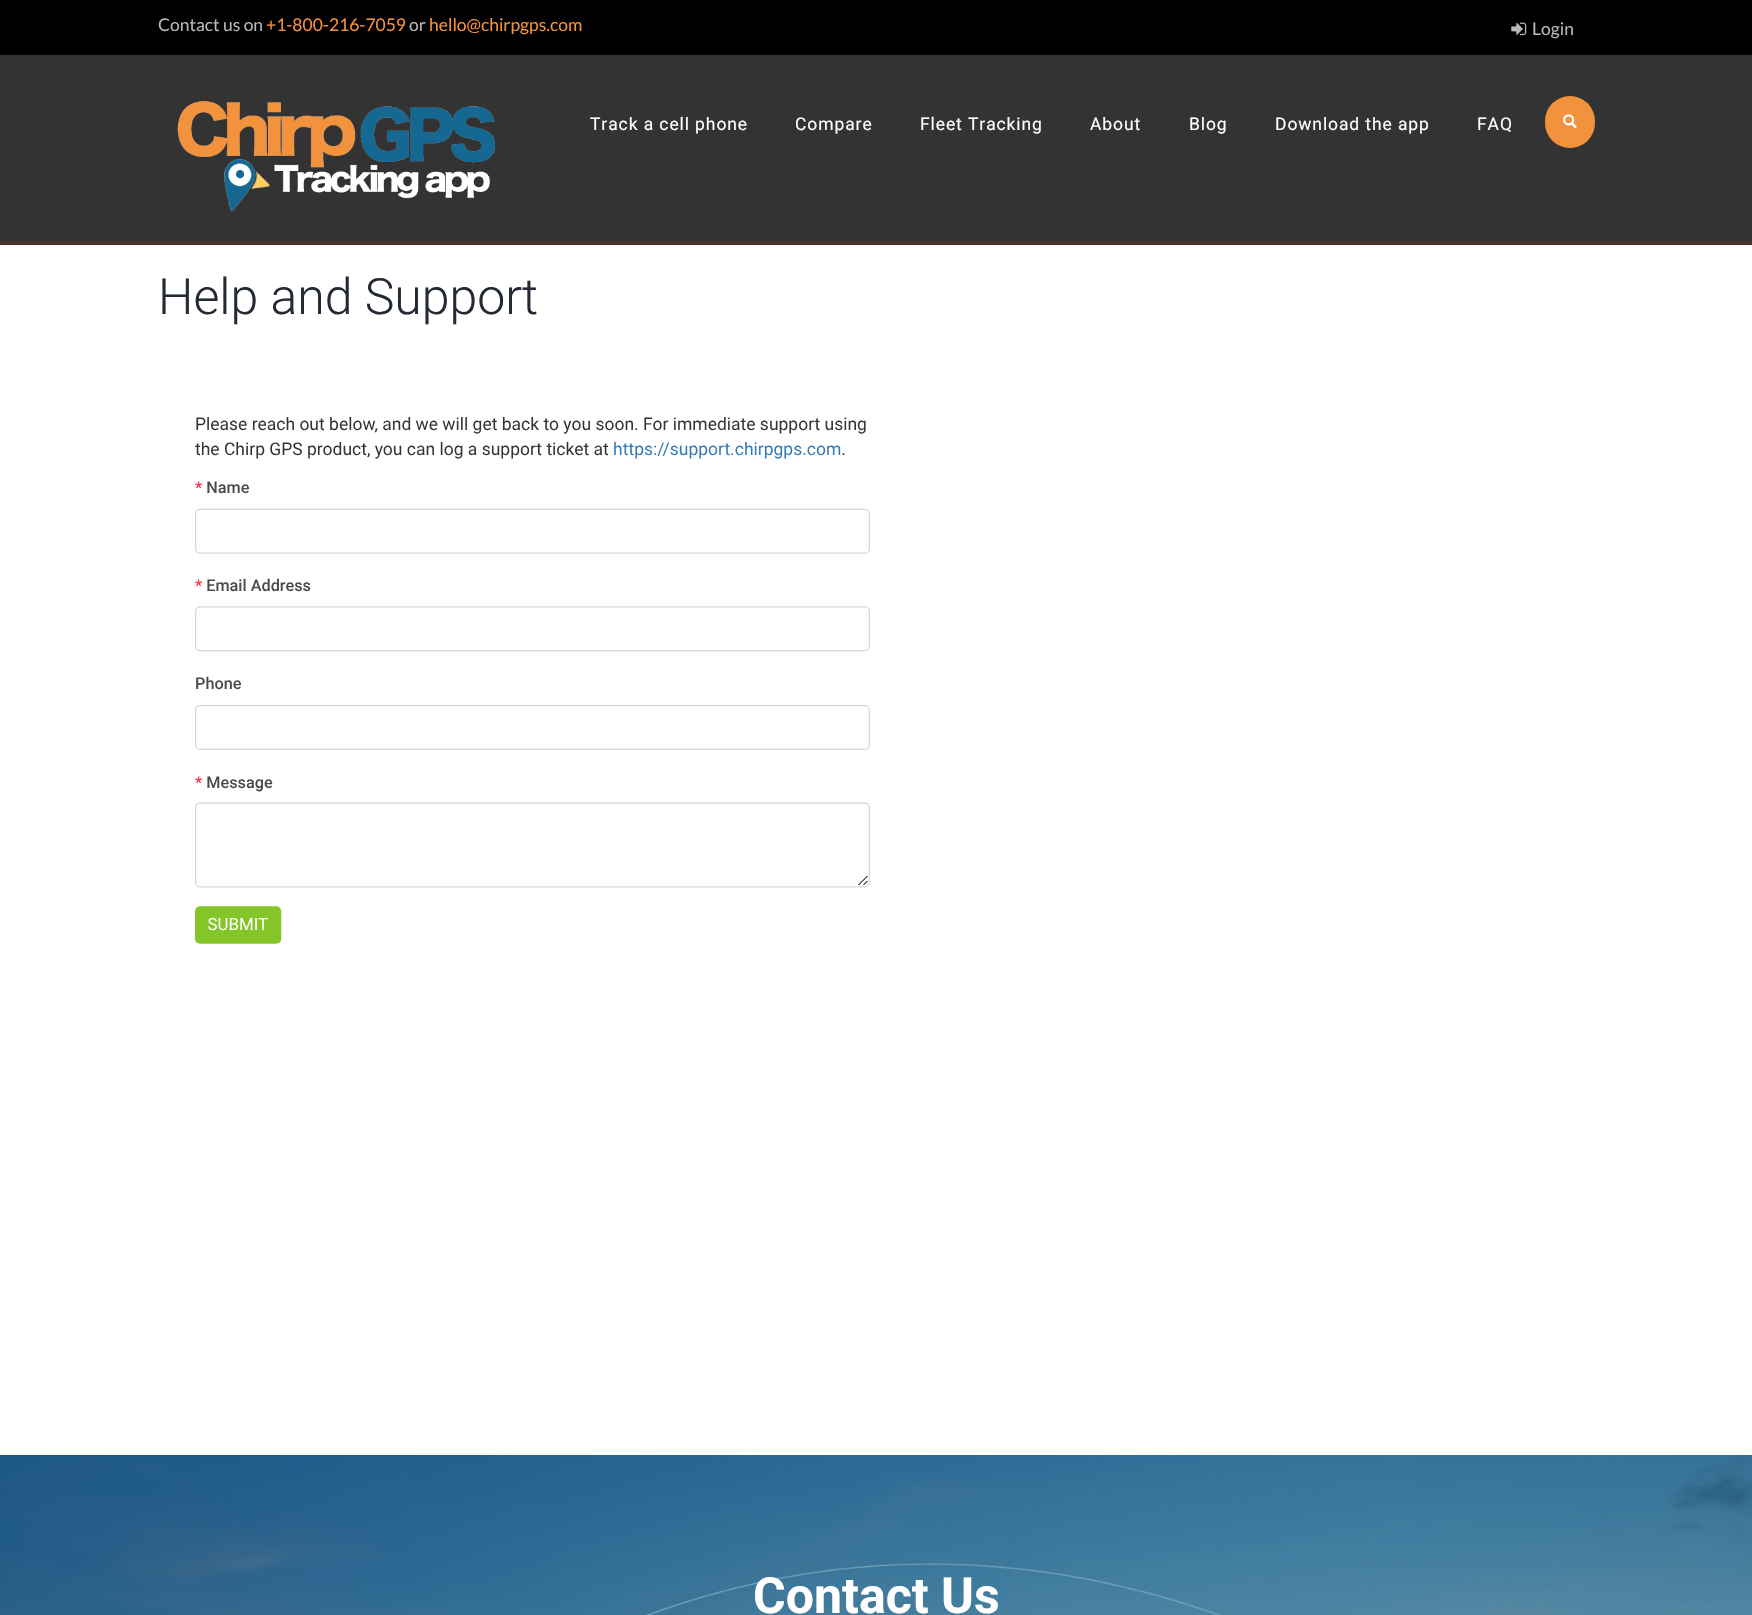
#include "include/core/SkBlurTypes.h"
#include "include/core/SkCanvas.h"
#include "include/core/SkData.h"
#include "include/core/SkFont.h"
#include "include/core/SkFontMgr.h"
#include "include/core/SkImage.h"
#include "include/core/SkMaskFilter.h"
#include "include/core/SkPaint.h"
#include "include/core/SkPathBuilder.h"
#include "include/core/SkTextBlob.h"
#include "include/effects/SkDashPathEffect.h"
#include "include/effects/SkGradientShader.h"
#include "include/utils/SkParsePath.h"

extern sk_sp<SkFontMgr> fontMgr;

void draw(SkCanvas* canvas) {
    SkPaint p;
    p.setAntiAlias(true);
    auto font = [&](const char* family, int weight, float size, bool italic = false) {
        SkFontStyle style(weight, SkFontStyle::kNormal_Width,
            italic ? SkFontStyle::kItalic_Slant : SkFontStyle::kUpright_Slant);
        SkFont result(fontMgr->matchFamilyStyle(family, style), size);
        result.setSubpixel(true);
        return result;
    };
    auto drawTracked = [&](const char* s, float x, float y, const SkFont& font, const SkPaint& ink, float letter, float word) {
        std::vector<SkGlyphID> glyphs(font.countText(s, strlen(s), SkTextEncoding::kUTF8));
        std::vector<float> xs(glyphs.size());
        font.textToGlyphs(s, strlen(s), SkTextEncoding::kUTF8, glyphs);
        font.getXPos(glyphs, xs, x);
        float extra = 0;
        for (size_t i = 0; i < glyphs.size(); i++) {
            xs[i] += extra;
            extra += letter + word * (glyphs[i] == font.unicharToGlyph(' '));
        }
        canvas->drawTextBlob(SkTextBlob::MakeFromPosHGlyphs(glyphs, xs, y, font), 0, 0, ink);
    };
    auto drawPhoto = [&](const char* path, float l, float t, float r, float b) {
        auto image = SkImages::DeferredFromEncodedData(SkData::MakeFromFileName(path));
        canvas->drawImageRect(image, SkRect::MakeLTRB(l, t, r, b), SkSamplingOptions());
    };
    canvas->clear(0xFFFFFFFF);
    {
        const struct { float l, t, r, b; SkColor color; } items[] = {
            {0, 55, 1752, 241, 0xFF333333},
            {0, 241, 1752, 245, 0xFF47362F},
            {0, 0, 1752, 55, 0xFF000000},
        };
        for (auto [l, t, r, b, color] : items) {
            p.setColor(color);
            canvas->drawRect(SkRect::MakeLTRB(l, t, r, b), p);
        }
    }
    auto font1 = font("Lato", 400, 17.5f);
    p.setColor(0xFFB8B8B8);
    canvas->drawString("Contact us on", 158, 31, font1, p);
    p.setColor(0xFFF3923D);
    canvas->drawString("+1-800-216-7059", 266, 31, font1, p);
    p.setColor(0xFFB8B8B8);
    canvas->drawString("or", 409, 31, font1, p);
    p.setColor(0xFFF3923D);
    canvas->drawString("hello@chirpgps.com", 429, 31, font1, p);
    drawPhoto("media/1.png", 1511, 22, 1527, 36);
    p.setColor(0xFFB8B8B8);
    canvas->drawString("Login", 1532, 35, font1, p);
    drawPhoto("media/2.png", 177, 101, 495, 212);
    auto font2 = font("Roboto", 400, 17.5f);
    p.setColor(0xFFFFFFFF);
    {
        const struct { const char* s; float x, y; } items[] = {
            {"Track a cell phone", 590, 130},
            {"Compare", 795, 130},
            {"Fleet Tracking", 920, 130},
            {"About", 1090, 130},
            {"Blog", 1189, 130},
            {"Download the app", 1275, 130},
            {"FAQ", 1477, 130},
        };
        for (auto [s, x, y] : items) {
            drawTracked(s, x, y, font2, p, 0.9f, 0);
        }
    }
    p.setColor(0xFFF3923D);
    canvas->drawRoundRect(SkRect::MakeLTRB(1545, 96, 1595, 148), 25, 25, p);
    drawPhoto("media/3.png", 1563, 114, 1577, 129);
    auto font3 = font("Roboto", 300, 50);
    p.setColor(0xFF232A34);
    canvas->drawString("Help and Support", 158, 314, font3, p);
    drawPhoto("media/4.png", 194, 416, 870, 944);
    drawPhoto("media/5.png", 0, 1455, 1752, 1615);
    auto font4 = font("Roboto", 700, 50);
    p.setColor(0xFFFFFFFF);
    canvas->drawString("Contact Us", 753, 1613, font4, p);
}
